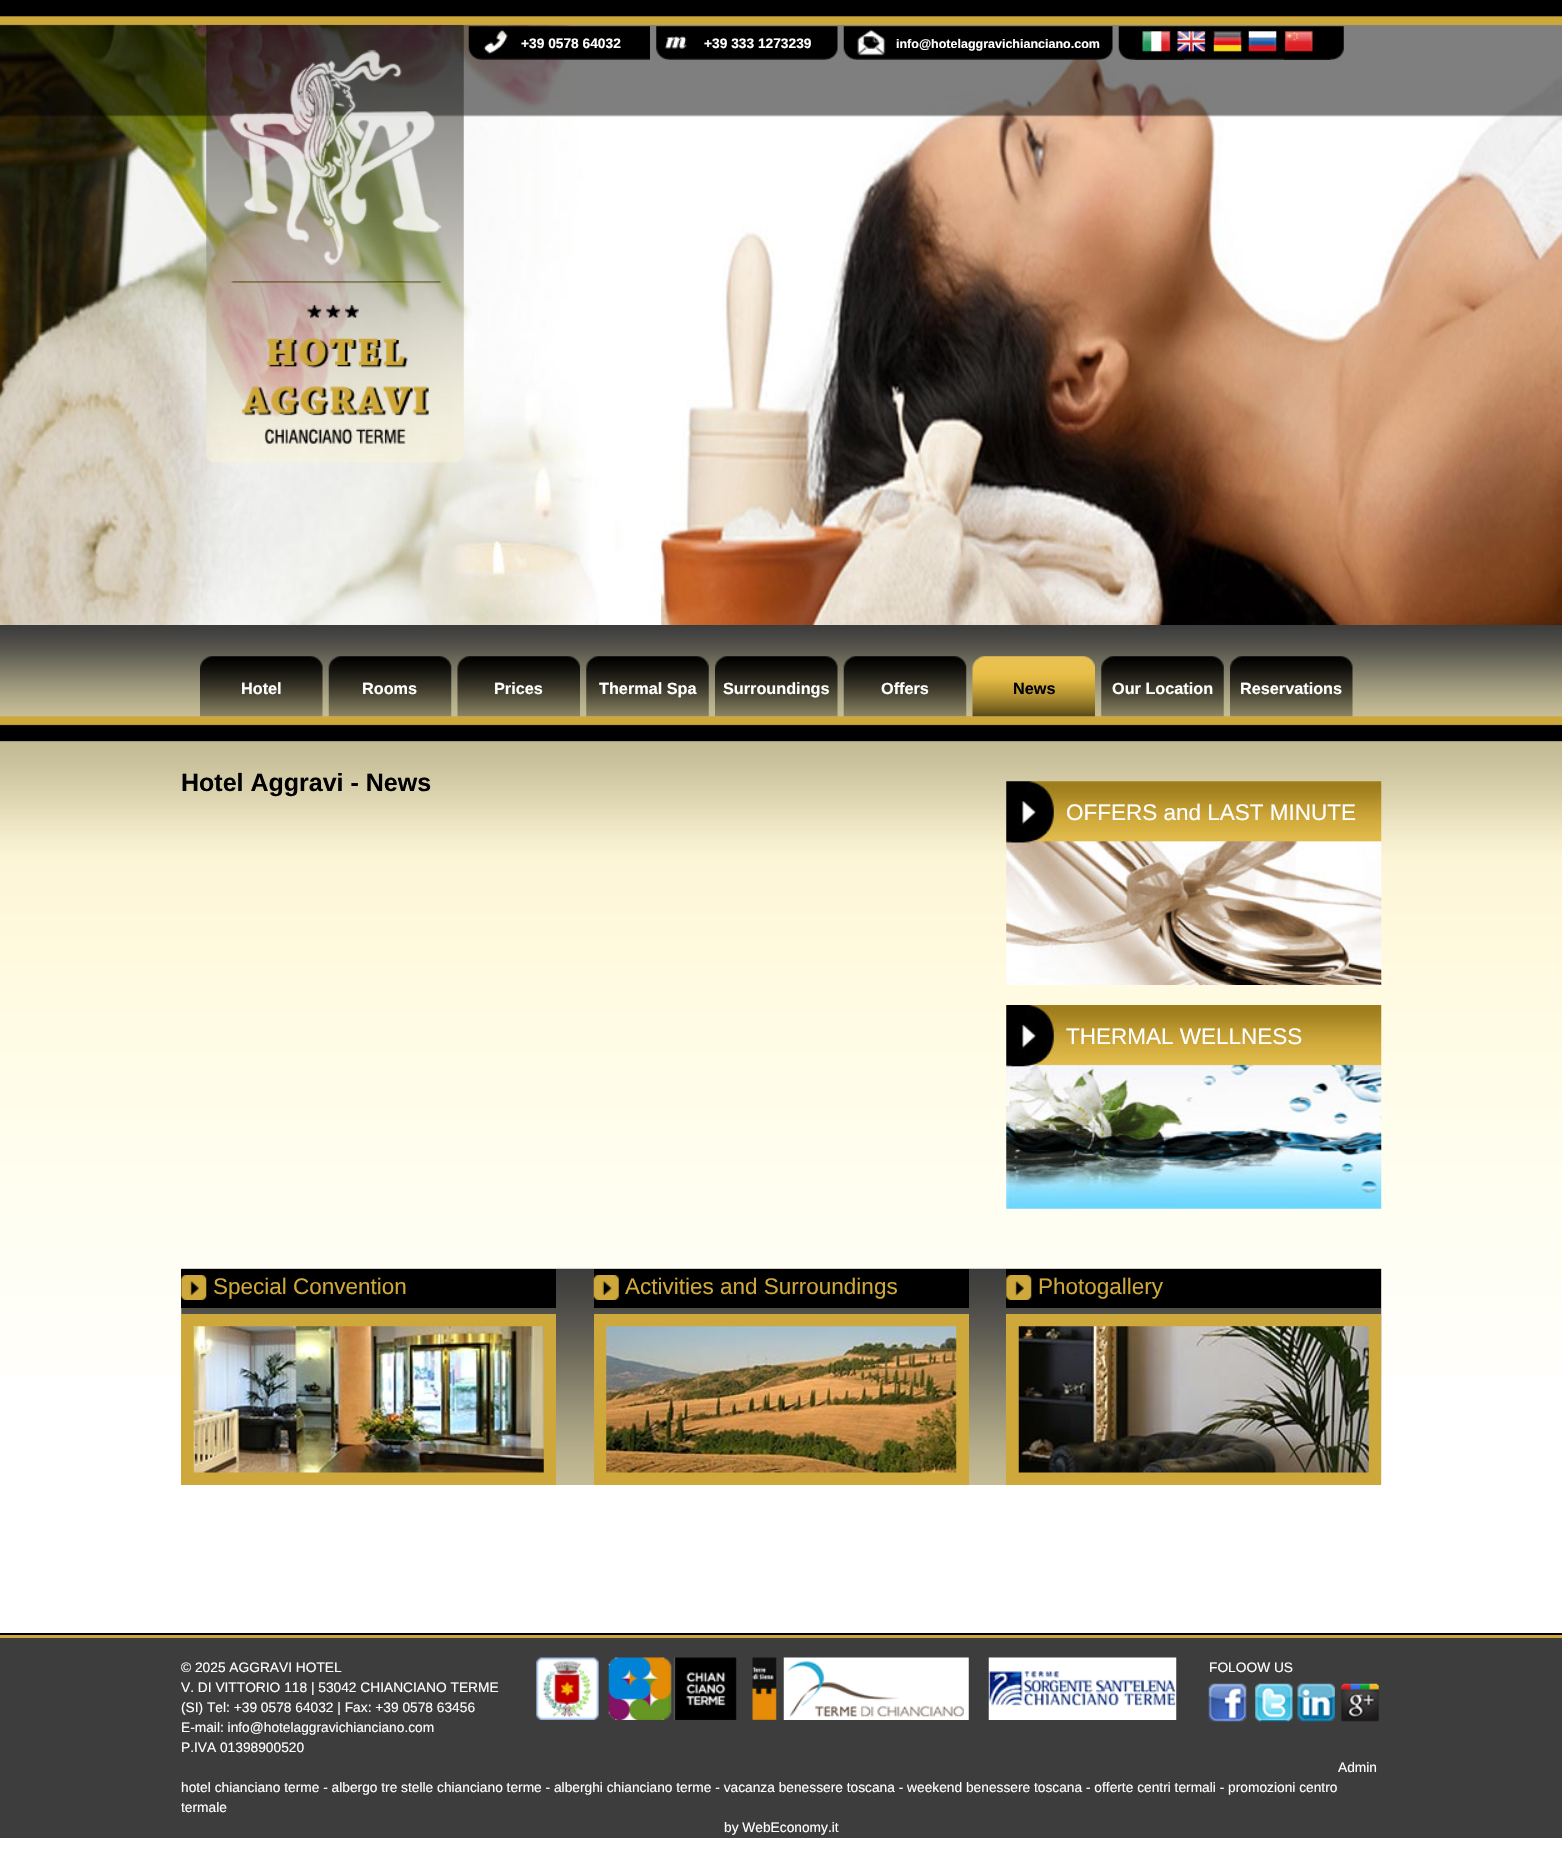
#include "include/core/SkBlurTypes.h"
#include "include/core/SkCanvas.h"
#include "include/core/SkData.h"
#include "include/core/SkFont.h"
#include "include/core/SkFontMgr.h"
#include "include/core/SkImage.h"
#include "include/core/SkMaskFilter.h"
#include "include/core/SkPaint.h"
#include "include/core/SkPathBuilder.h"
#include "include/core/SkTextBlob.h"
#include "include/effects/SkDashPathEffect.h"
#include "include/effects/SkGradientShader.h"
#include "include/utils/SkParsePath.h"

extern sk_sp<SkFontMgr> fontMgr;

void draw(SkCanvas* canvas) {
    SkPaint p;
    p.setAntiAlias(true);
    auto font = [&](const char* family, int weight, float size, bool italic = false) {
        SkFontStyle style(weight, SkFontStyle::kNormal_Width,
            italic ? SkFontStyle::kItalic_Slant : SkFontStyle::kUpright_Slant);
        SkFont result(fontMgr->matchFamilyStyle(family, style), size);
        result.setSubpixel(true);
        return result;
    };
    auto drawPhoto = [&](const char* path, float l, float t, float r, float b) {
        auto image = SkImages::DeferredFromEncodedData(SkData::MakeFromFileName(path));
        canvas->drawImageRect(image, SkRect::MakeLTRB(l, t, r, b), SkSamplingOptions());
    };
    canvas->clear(0xFFFFFFFF);
    drawPhoto("media/1.png", 0, 24, 1562, 625);
    drawPhoto("media/2.png", 0, 0, 1562, 117);
    drawPhoto("media/3.png", 206, 25, 464, 463);
    drawPhoto("media/4.png", 468, 26, 650, 60);
    auto font1 = font("Liberation Sans", 700, 13.75f);
    p.setColor(0xFFFFFFFF);
    canvas->drawString("+39 0578 64032", 521, 48, font1, p);
    drawPhoto("media/5.png", 656, 26, 838, 60);
    canvas->drawString("+39 333 1273239", 704, 48, font1, p);
    drawPhoto("media/6.png", 843, 26, 1113, 60);
    auto font2 = font("Liberation Sans", 700, 12.5f);
    canvas->drawString("info@hotelaggravichianciano.com", 896, 48, font2, p);
    drawPhoto("media/7.png", 1118, 26, 1344, 60);
    drawPhoto("media/8.png", 1142, 31, 1171, 52);
    drawPhoto("media/9.png", 1177, 31, 1206, 52);
    drawPhoto("media/10.png", 1213, 31, 1242, 52);
    drawPhoto("media/11.png", 1248, 31, 1277, 52);
    drawPhoto("media/12.png", 1284, 31, 1313, 52);
    drawPhoto("media/22.png", 0, 741, 1562, 1376);
    drawPhoto("media/13.png", 0, 625, 1562, 742);
    drawPhoto("media/14.png", 200, 656, 323, 717);
    auto font3 = font("Liberation Sans", 700, 16.25f);
    canvas->drawString("Hotel", 241, 694, font3, p);
    drawPhoto("media/15.png", 328, 656, 452, 717);
    canvas->drawString("Rooms", 362, 694, font3, p);
    drawPhoto("media/16.png", 457, 656, 580, 717);
    canvas->drawString("Prices", 494, 694, font3, p);
    drawPhoto("media/17.png", 586, 656, 709, 717);
    canvas->drawString("Thermal Spa", 599, 694, font3, p);
    drawPhoto("media/18.png", 715, 656, 838, 717);
    canvas->drawString("Surroundings", 723, 694, font3, p);
    drawPhoto("media/19.png", 843, 656, 967, 717);
    canvas->drawString("Offers", 881, 694, font3, p);
    drawPhoto("media/20.png", 972, 656, 1095, 717);
    p.setColor(0xFF000000);
    canvas->drawString("News", 1013, 694, font3, p);
    drawPhoto("media/21.png", 1101, 656, 1224, 717);
    p.setColor(0xFFFFFFFF);
    canvas->drawString("Our Location", 1112, 694, font3, p);
    drawPhoto("media/14.png", 1230, 656, 1353, 717);
    canvas->drawString("Reservations", 1240, 694, font3, p);
    auto font4 = font("Liberation Sans", 700, 25);
    p.setColor(0xFF000000);
    canvas->drawString("Hotel Aggravi - News", 181, 791, font4, p);
    drawPhoto("media/23.png", 1006, 781, 1382, 985);
    auto font5 = font("Liberation Sans", 400, 22.5f);
    p.setColor(0xFFFFFFFF);
    canvas->drawString("OFFERS and LAST MINUTE", 1066, 820, font5, p);
    drawPhoto("media/24.png", 1006, 1005, 1382, 1209);
    canvas->drawString("THERMAL WELLNESS", 1066, 1044, font5, p);
    drawPhoto("media/25.png", 181, 1268, 1382, 1485);
    p.setColor(0xFF000000);
    canvas->drawRect(SkRect::MakeLTRB(181, 1269, 556, 1308), p);
    drawPhoto("media/26.png", 181, 1275, 207, 1300);
    p.setColor(0xFFCEA83B);
    canvas->drawString("Special Convention", 213, 1294, font5, p);
    p.setColor(0xFF000000);
    canvas->drawRect(SkRect::MakeLTRB(594, 1269, 969, 1308), p);
    drawPhoto("media/27.png", 593, 1275, 619, 1300);
    p.setColor(0xFFCEA83B);
    canvas->drawString("Activities and Surroundings", 625, 1294, font5, p);
    p.setColor(0xFF000000);
    canvas->drawRect(SkRect::MakeLTRB(1006, 1269, 1381, 1308), p);
    drawPhoto("media/28.png", 1006, 1275, 1032, 1300);
    p.setColor(0xFFCEA83B);
    canvas->drawString("Photogallery", 1038, 1294, font5, p);
    p.setStyle(SkPaint::kStroke_Style);
    p.setStrokeWidth(13);
    canvas->drawRect(SkRect::MakeLTRB(187.5f, 1320.5f, 549.5f, 1478.5f), p);
    drawPhoto("media/29.png", 193, 1326, 544, 1473);
    canvas->drawRect(SkRect::MakeLTRB(600.5f, 1320.5f, 962.5f, 1478.5f), p);
    drawPhoto("media/30.png", 606, 1326, 957, 1473);
    canvas->drawRect(SkRect::MakeLTRB(1012.5f, 1320.5f, 1374.5f, 1478.5f), p);
    drawPhoto("media/31.png", 1018, 1326, 1369, 1473);
    p.setStyle(SkPaint::kFill_Style);
    {
        const struct { float l, t, r, b; SkColor color; } items[] = {
            {0, 1638, 1562, 1838, 0xFF3D3D3D},
            {0, 1633, 1562, 1635, 0xFF000000},
            {0, 1635, 1562, 1638, 0xFFCEA83B},
        };
        for (auto [l, t, r, b, color] : items) {
            p.setColor(color);
            canvas->drawRect(SkRect::MakeLTRB(l, t, r, b), p);
        }
    }
    auto font6 = font("Liberation Sans", 400, 13.75f);
    p.setColor(0xFFFFFFFF);
    {
        const struct { const char* s; float x, y; } items[] = {
            {"© 2025 AGGRAVI HOTEL", 181, 1672},
            {"V. DI VITTORIO 118 | 53042 CHIANCIANO TERME", 181, 1692},
            {"(SI) Tel: +39 0578 64032 | Fax: +39 0578 63456", 181, 1712},
            {"E-mail: info@hotelaggravichianciano.com", 181, 1732},
            {"P.IVA 01398900520", 181, 1752},
        };
        for (auto [s, x, y] : items) {
            canvas->drawString(s, x, y, font6, p);
        }
    }
    drawPhoto("media/32.png", 536, 1657, 599, 1720);
    drawPhoto("media/33.png", 608, 1657, 737, 1720);
    drawPhoto("media/34.png", 752, 1657, 777, 1720);
    drawPhoto("media/35.png", 783, 1657, 969, 1720);
    drawPhoto("media/36.png", 988, 1657, 1177, 1720);
    canvas->drawString("FOLOOW US", 1209, 1672, font6, p);
    drawPhoto("media/37.png", 1208, 1683, 1247, 1722);
    drawPhoto("media/38.png", 1255, 1683, 1293, 1722);
    drawPhoto("media/39.png", 1297, 1683, 1335, 1722);
    drawPhoto("media/40.png", 1341, 1683, 1379, 1722);
    {
        const struct { const char* s; float x, y; } items[] = {
            {"Admin", 1338, 1772},
            {"hotel chianciano terme - albergo tre stelle chianciano terme - alberghi chianciano terme - vacanza benessere toscana - weekend benessere toscana - offerte centri termali - promozioni centro", 181, 1792},
            {"termale", 181, 1812},
            {"by WebEconomy.it", 724, 1832},
        };
        for (auto [s, x, y] : items) {
            canvas->drawString(s, x, y, font6, p);
        }
    }
}
